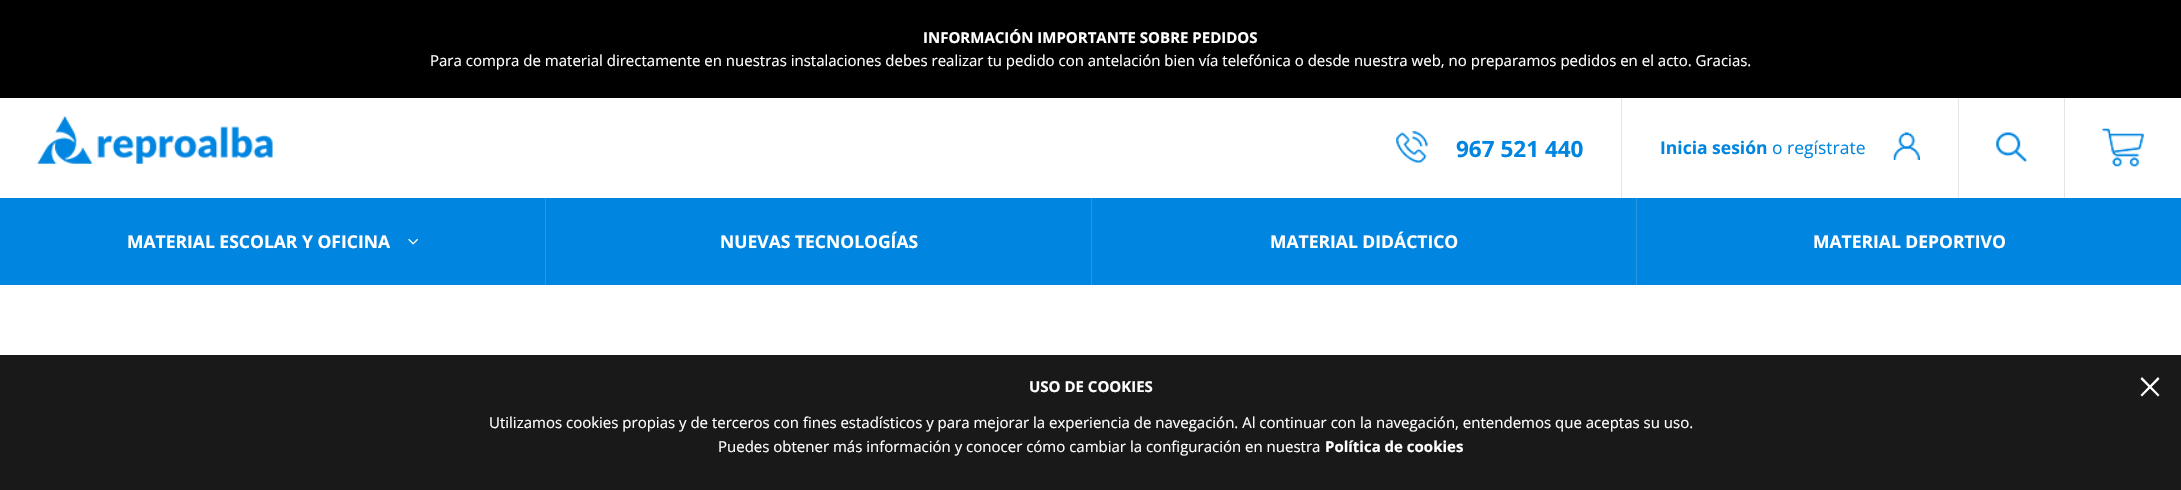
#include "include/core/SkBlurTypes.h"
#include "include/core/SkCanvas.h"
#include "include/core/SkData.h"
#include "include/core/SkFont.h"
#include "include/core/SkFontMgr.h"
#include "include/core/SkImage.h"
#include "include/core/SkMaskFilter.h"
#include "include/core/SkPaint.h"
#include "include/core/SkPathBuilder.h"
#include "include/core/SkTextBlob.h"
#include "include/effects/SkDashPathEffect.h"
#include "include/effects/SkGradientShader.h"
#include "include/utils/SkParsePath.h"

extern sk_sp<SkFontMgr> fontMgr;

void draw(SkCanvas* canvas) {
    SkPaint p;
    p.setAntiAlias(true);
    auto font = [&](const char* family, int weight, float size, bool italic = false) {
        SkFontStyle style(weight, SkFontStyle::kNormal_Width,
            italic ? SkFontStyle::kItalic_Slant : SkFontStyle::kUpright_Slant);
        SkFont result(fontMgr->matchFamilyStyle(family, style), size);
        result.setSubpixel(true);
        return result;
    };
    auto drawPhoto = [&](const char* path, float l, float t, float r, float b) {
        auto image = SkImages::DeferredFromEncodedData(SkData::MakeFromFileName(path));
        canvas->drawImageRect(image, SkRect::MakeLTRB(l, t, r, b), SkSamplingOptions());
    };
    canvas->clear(0xFFFFFFFF);
    p.setColor(0xFF000000);
    canvas->drawRect(SkRect::MakeLTRB(0, 0, 2181, 98), p);
    auto font1 = font("Open Sans", 700, 15);
    p.setColor(0xFFFFFFFF);
    canvas->drawString("INFORMACIÓN IMPORTANTE SOBRE PEDIDOS", 923, 43, font1, p);
    auto font2 = font("Open Sans", 400, 15);
    canvas->drawString("Para compra de material directamente en nuestras instalaciones debes realizar tu pedido con antelación bien vía telefónica o desde nuestra web, no preparamos pedidos en el acto. Gracias.", 430, 66, font2, p);
    drawPhoto("media/1.png", 37, 116, 273, 164);
    p.setColor(0xFFE5E5E5);
    canvas->drawRect(SkRect::MakeLTRB(1621, 98, 1622, 198), p);
    drawPhoto("media/2.png", 1396, 131, 1428, 163);
    auto font3 = font("Open Sans", 700, 22.5f);
    p.setColor(0xFF0085E0);
    canvas->drawString("967 521 440", 1456, 157, font3, p);
    p.setColor(0xFFE5E5E5);
    canvas->drawRect(SkRect::MakeLTRB(1958, 98, 1959, 198), p);
    auto font4 = font("Open Sans", 700, 17.5f);
    p.setColor(0xFF0085E0);
    canvas->drawString("Inicia sesión", 1660, 154, font4, p);
    auto font5 = font("Open Sans", 400, 17.5f);
    canvas->drawString("o regístrate", 1772, 154, font5, p);
    drawPhoto("media/3.png", 1893, 132, 1920, 160);
    p.setColor(0xFFE5E5E5);
    canvas->drawRect(SkRect::MakeLTRB(2064, 98, 2065, 198), p);
    drawPhoto("media/4.png", 1996, 132, 2027, 162);
    drawPhoto("media/5.png", 2102, 128, 2144, 167);
    p.setColor(0xFF0085E0);
    canvas->drawRect(SkRect::MakeLTRB(0, 198, 2181, 285), p);
    p.setColor(0xFFFFFFFF);
    canvas->drawString("MATERIAL ESCOLAR Y OFICINA", 127, 248, font4, p);
    drawPhoto("media/6.png", 408, 238, 418, 245);
    p.setColor(0xFF2697E5);
    canvas->drawRect(SkRect::MakeLTRB(545, 198, 546, 285), p);
    p.setColor(0xFFFFFFFF);
    canvas->drawString("NUEVAS TECNOLOGÍAS", 720, 248, font4, p);
    p.setColor(0xFF2697E5);
    canvas->drawRect(SkRect::MakeLTRB(1091, 198, 1092, 285), p);
    p.setColor(0xFFFFFFFF);
    canvas->drawString("MATERIAL DIDÁCTICO", 1270, 248, font4, p);
    p.setColor(0xFF2697E5);
    canvas->drawRect(SkRect::MakeLTRB(1636, 198, 1637, 285), p);
    p.setColor(0xFFFFFFFF);
    canvas->drawString("MATERIAL DEPORTIVO", 1813, 248, font4, p);
    p.setColor(0xFF191919);
    canvas->drawRect(SkRect::MakeLTRB(0, 355, 2181, 490), p);
    p.setColor(0xFFFFFFFF);
    canvas->drawString("USO DE COOKIES", 1029, 392, font1, p);
    canvas->drawString("Utilizamos cookies propias y de terceros con fines estadísticos y para mejorar la experiencia de navegación. Al continuar con la navegación, entendemos que aceptas su uso.", 489, 428, font2, p);
    canvas->drawString("Puedes obtener más información y conocer cómo cambiar la configuración en nuestra", 718, 452, font2, p);
    canvas->drawString("Política de cookies", 1325, 452, font1, p);
    canvas->drawPath(SkPathBuilder().moveTo(2158, 377).lineTo(2159.5f, 379).lineTo(2142, 396.5f).lineTo(2140.5f, 395).close().detach(), p);
    canvas->drawPath(SkPathBuilder().moveTo(2140.5f, 379).lineTo(2142, 377).lineTo(2159.5f, 395).lineTo(2158, 396.5f).close().detach(), p);
}
